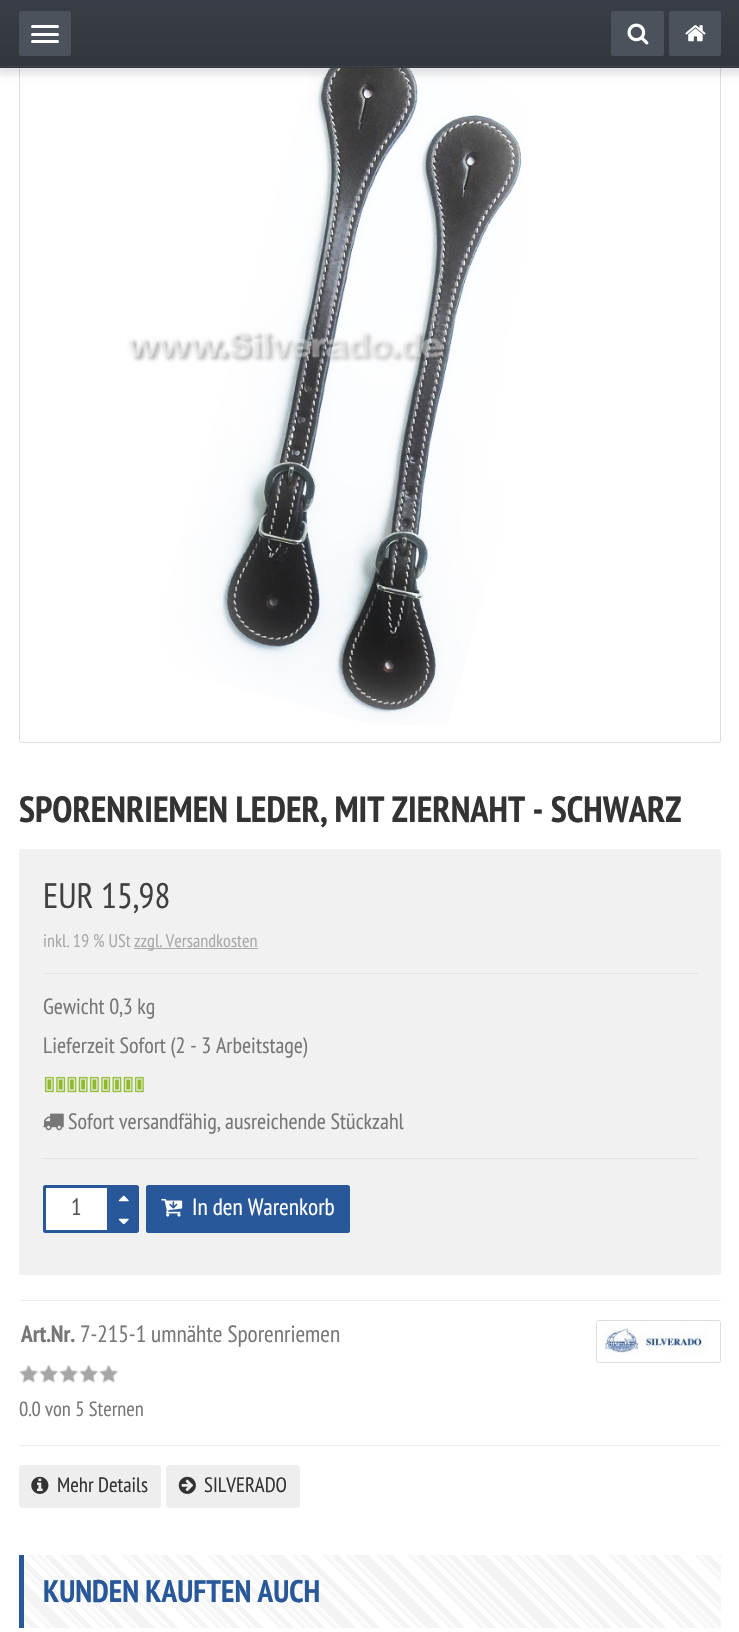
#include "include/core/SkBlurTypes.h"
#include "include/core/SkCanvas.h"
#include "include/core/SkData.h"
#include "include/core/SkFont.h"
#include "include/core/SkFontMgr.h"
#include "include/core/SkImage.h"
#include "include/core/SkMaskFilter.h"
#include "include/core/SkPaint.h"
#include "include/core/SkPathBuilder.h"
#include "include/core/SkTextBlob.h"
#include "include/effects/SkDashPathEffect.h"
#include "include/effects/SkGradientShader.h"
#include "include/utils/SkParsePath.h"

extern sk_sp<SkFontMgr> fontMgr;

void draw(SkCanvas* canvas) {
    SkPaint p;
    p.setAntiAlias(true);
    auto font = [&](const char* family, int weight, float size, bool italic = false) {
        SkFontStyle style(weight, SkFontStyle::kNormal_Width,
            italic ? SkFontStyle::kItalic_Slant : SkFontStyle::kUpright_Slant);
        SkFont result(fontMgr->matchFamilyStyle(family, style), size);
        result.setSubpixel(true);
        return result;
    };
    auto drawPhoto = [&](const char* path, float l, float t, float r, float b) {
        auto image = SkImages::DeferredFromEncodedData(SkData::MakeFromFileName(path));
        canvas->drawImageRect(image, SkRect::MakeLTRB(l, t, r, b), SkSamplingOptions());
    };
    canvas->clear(0xFFFFFFFF);
    p.setStyle(SkPaint::kStroke_Style);
    p.setStrokeWidth(1);
    p.setColor(0xFFDDDDDD);
    canvas->drawRoundRect(SkRect::MakeLTRB(19.5f, 30.5f, 720.5f, 742.5f), 2, 2, p);
    drawPhoto("media/3.png", 127, 68, 522, 725);
    p.setStyle(SkPaint::kFill_Style);
    p.setColor(0x1A000000);
    p.setMaskFilter(SkMaskFilter::MakeBlur(kNormal_SkBlurStyle, 3));
    canvas->drawRect(SkRect::MakeLTRB(-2, 3, 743, 75), p);
    p.setMaskFilter(nullptr);
    {
        const SkColor colors[] = {0xFF393E46, 0xFF32373E};
        const float stops[] = {0, 1};
        const SkPoint ends[] = {{370, 1.2f}, {370, 68}};
        p.setShader(SkGradientShader::MakeLinear(ends, colors, stops, 2, SkTileMode::kClamp));
        p.setAlpha(255);
    }
    canvas->drawRect(SkRect::MakeLTRB(0, 1, 739, 68), p);
    p.setShader(nullptr);
    p.setColor(0xFF393E46);
    canvas->drawRect(SkRect::MakeLTRB(0, 0, 739, 1), p);
    p.setColor(0xFF3E434C);
    canvas->drawRect(SkRect::MakeLTRB(0, 66, 739, 67), p);
    p.setColor(0xFF4B525C);
    canvas->drawRoundRect(SkRect::MakeLTRB(19, 11, 71, 56), 2.5f, 2.5f, p);
    p.setColor(0xFFFFFFFF);
    canvas->drawRoundRect(SkRect::MakeLTRB(31, 25, 59, 28), 1.5f, 1.5f, p);
    canvas->drawRoundRect(SkRect::MakeLTRB(31, 33, 59, 36), 1.5f, 1.5f, p);
    canvas->drawRoundRect(SkRect::MakeLTRB(31, 40, 59, 43), 1.5f, 1.5f, p);
    p.setColor(0xFF4B525C);
    canvas->drawRoundRect(SkRect::MakeLTRB(611, 11, 664, 56), 2.5f, 2.5f, p);
    drawPhoto("media/1.png", 627, 23, 649, 45);
    canvas->drawRoundRect(SkRect::MakeLTRB(669, 11, 721, 56), 2.5f, 2.5f, p);
    drawPhoto("media/2.png", 685, 25, 706, 42);
    auto font1 = font("PT Sans Narrow", 700, 35);
    p.setColor(0xFF333333);
    canvas->drawString("SPORENRIEMEN LEDER, MIT ZIERNAHT - SCHWARZ", 19, 822, font1, p);
    p.setColor(0xFFF1F1F1);
    canvas->drawRoundRect(SkRect::MakeLTRB(19, 849, 721, 1275), 2.5f, 2.5f, p);
    auto font2 = font("PT Sans Narrow", 400, 34);
    p.setColor(0xFF404040);
    canvas->drawString("EUR 15,98", 43, 908, font2, p);
    auto font3 = font("PT Sans Narrow", 400, 17.5f);
    p.setColor(0xFFAAAAAA);
    canvas->drawString("inkl. 19 % USt", 43, 947, font3, p);
    canvas->drawRect(SkRect::MakeLTRB(134, 948, 258, 949), p);
    canvas->drawString("zzgl. Versandkosten", 134, 947, font3, p);
    p.setColor(0xFFE2E2E2);
    canvas->drawRect(SkRect::MakeLTRB(43, 973, 698, 974), p);
    auto font4 = font("PT Sans Narrow", 400, 21.25f);
    p.setColor(0xFF777777);
    canvas->drawString("Gewicht 0,3 kg", 43, 1014, font4, p);
    canvas->drawString("Lieferzeit Sofort (2 - 3 Arbeitstage)", 43, 1053, font4, p);
    drawPhoto("media/4.png", 44, 1076, 144, 1093);
    drawPhoto("media/5.png", 43, 1113, 64, 1131);
    canvas->drawString("Sofort versandfähig, ausreichende Stückzahl", 68, 1129, font4, p);
    p.setColor(0xFFE2E2E2);
    canvas->drawRect(SkRect::MakeLTRB(43, 1158, 698, 1159), p);
    p.setColor(0xFFFFFFFF);
    canvas->drawPath(SkPathBuilder().moveTo(45.5f, 1186.5f).lineTo(108.5f, 1186.5f).lineTo(108.5f, 1231.5f).lineTo(45.5f, 1231.5f).cubicTo(45, 1231.5f, 44.5f, 1231, 44.5f, 1230.5f).lineTo(44.5f, 1187.5f).cubicTo(44.5f, 1187, 45, 1186.5f, 45.5f, 1186.5f).close().detach(), p);
    p.setStyle(SkPaint::kStroke_Style);
    p.setStrokeWidth(3);
    p.setColor(0xFF28589A);
    canvas->drawPath(SkPathBuilder().moveTo(45.5f, 1186.5f).lineTo(108.5f, 1186.5f).lineTo(108.5f, 1231.5f).lineTo(45.5f, 1231.5f).cubicTo(45, 1231.5f, 44.5f, 1231, 44.5f, 1230.5f).lineTo(44.5f, 1187.5f).cubicTo(44.5f, 1187, 45, 1186.5f, 45.5f, 1186.5f).close().detach(), p);
    auto font5 = font("PT Sans Narrow", 400, 22.5f);
    p.setStyle(SkPaint::kFill_Style);
    p.setColor(0xFF555555);
    canvas->drawString("1", 71, 1215, font5, p);
    p.setColor(0xFF28589A);
    canvas->drawPath(SkPathBuilder().moveTo(110, 1185).lineTo(136.5f, 1185).cubicTo(138, 1185, 139, 1186, 139, 1187.5f).lineTo(139, 1230.5f).cubicTo(139, 1232, 138, 1233, 136.5f, 1233).lineTo(110, 1233).close().detach(), p);
    drawPhoto("media/6.png", 118, 1195, 129, 1202);
    drawPhoto("media/7.png", 118, 1218, 129, 1224);
    canvas->drawRoundRect(SkRect::MakeLTRB(146, 1185, 350, 1233), 2.5f, 2.5f, p);
    drawPhoto("media/8.png", 161, 1198, 183, 1217);
    p.setColor(0xFFFFFFFF);
    canvas->drawString("In den Warenkorb", 192, 1215, font5, p);
    p.setColor(0xFFEEEEEE);
    canvas->drawRect(SkRect::MakeLTRB(19, 1300, 721, 1301), p);
    auto font6 = font("PT Sans Narrow", 700, 22.5f);
    p.setColor(0xFF777777);
    canvas->drawString("Art.Nr.", 21, 1342, font6, p);
    canvas->drawString("7-215-1 umnähte Sporenriemen", 80, 1342, font5, p);
    p.setStyle(SkPaint::kStroke_Style);
    p.setStrokeWidth(1);
    p.setColor(0xFFDDDDDD);
    canvas->drawRoundRect(SkRect::MakeLTRB(596.5f, 1320.5f, 720.5f, 1362.5f), 2, 2, p);
    drawPhoto("media/9.png", 603, 1326, 708, 1355);
    drawPhoto("media/10.png", 19, 1365, 119, 1383);
    drawPhoto("media/11.png", 18, 1371, 20, 1373);
    auto font7 = font("PT Sans Narrow", 400, 19.75f);
    p.setStyle(SkPaint::kFill_Style);
    p.setColor(0xFF777777);
    canvas->drawString("0.0 von 5 Sternen", 19, 1416, font7, p);
    p.setColor(0xFFEEEEEE);
    canvas->drawRect(SkRect::MakeLTRB(19, 1445, 721, 1446), p);
    canvas->drawRoundRect(SkRect::MakeLTRB(19, 1465, 161, 1508), 4, 4, p);
    drawPhoto("media/12.png", 31, 1476, 49, 1494);
    auto font8 = font("PT Sans Narrow", 400, 20);
    p.setColor(0xFF333333);
    canvas->drawString("Mehr Details", 57, 1492, font8, p);
    p.setColor(0xFFEEEEEE);
    canvas->drawRoundRect(SkRect::MakeLTRB(166, 1465, 300, 1508), 4, 4, p);
    drawPhoto("media/13.png", 178, 1476, 196, 1494);
    p.setColor(0xFF333333);
    canvas->drawString("SILVERADO", 204, 1492, font8, p);
    {
        const SkColor colors[] = {0xFFF4F4F4, 0xFFF4F4F4, 0xFFFFFFFF, 0xFFFFFFFF, 0xFFF4F4F4, 0xFFF4F4F4, 0xFFFFFFFF, 0xFFFFFFFF, 0xFFF4F4F4, 0xFFF4F4F4, 0xFFFFFFFF, 0xFFFFFFFF, 0xFFF4F4F4, 0xFFF4F4F4, 0xFFFFFFFF, 0xFFFFFFFF, 0xFFF4F4F4, 0xFFF4F4F4, 0xFFFFFFFF, 0xFFFFFFFF, 0xFFF4F4F4, 0xFFF4F4F4, 0xFFFFFFFF, 0xFFFFFFFF, 0xFFF4F4F4, 0xFFF4F4F4, 0xFFFFFFFF, 0xFFFFFFFF, 0xFFF4F4F4, 0xFFF4F4F4, 0xFFFFFFFF, 0xFFFFFFFF, 0xFFF4F4F4, 0xFFF4F4F4, 0xFFFFFFFF, 0xFFFFFFFF, 0xFFF4F4F4, 0xFFF4F4F4, 0xFFFFFFFF, 0xFFFFFFFF, 0xFFF4F4F4, 0xFFF4F4F4, 0xFFFFFFFF, 0xFFFFFFFF, 0xFFF4F4F4, 0xFFF4F4F4, 0xFFFFFFFF, 0xFFFFFFFF, 0xFFF4F4F4, 0xFFF4F4F4, 0xFFFFFFFF, 0xFFFFFFFF, 0xFFF4F4F4, 0xFFF4F4F4, 0xFFFFFFFF, 0xFFFFFFFF, 0xFFF4F4F4, 0xFFF4F4F4, 0xFFFFFFFF, 0xFFFFFFFF, 0xFFF4F4F4, 0xFFF4F4F4, 0xFFFFFFFF, 0xFFFFFFFF, 0xFFF4F4F4, 0xFFF4F4F4, 0xFFFFFFFF, 0xFFFFFFFF, 0xFFF4F4F4, 0xFFF4F4F4, 0xFFFFFFFF, 0xFFFFFFFF, 0xFFF4F4F4, 0xFFF4F4F4, 0xFFFFFFFF, 0xFFFFFFFF, 0xFFF4F4F4, 0xFFF4F4F4, 0xFFFFFFFF, 0xFFFFFFFF, 0xFFF4F4F4, 0xFFF4F4F4, 0xFFFFFFFF, 0xFFFFFFFF, 0xFFF4F4F4, 0xFFF4F4F4, 0xFFFFFFFF, 0xFFFFFFFF, 0xFFF4F4F4, 0xFFF4F4F4, 0xFFFFFFFF, 0xFFFFFFFF, 0xFFF4F4F4, 0xFFF4F4F4, 0xFFFFFFFF, 0xFFFFFFFF, 0xFFF4F4F4, 0xFFF4F4F4, 0xFFFFFFFF, 0xFFFFFFFF, 0xFFF4F4F4, 0xFFF4F4F4, 0xFFFFFFFF, 0xFFFFFFFF, 0xFFF4F4F4, 0xFFF4F4F4, 0xFFFFFFFF, 0xFFFFFFFF, 0xFFF4F4F4, 0xFFF4F4F4, 0xFFFFFFFF, 0xFFFFFFFF, 0xFFF4F4F4, 0xFFF4F4F4, 0xFFFFFFFF, 0xFFFFFFFF, 0xFFF4F4F4, 0xFFF4F4F4, 0xFFFFFFFF, 0xFFFFFFFF, 0xFFF4F4F4, 0xFFF4F4F4, 0xFFFFFFFF, 0xFFFFFFFF, 0xFFF4F4F4, 0xFFF4F4F4, 0xFFFFFFFF, 0xFFFFFFFF, 0xFFF4F4F4, 0xFFF4F4F4, 0xFFFFFFFF, 0xFFFFFFFF, 0xFFF4F4F4, 0xFFF4F4F4, 0xFFFFFFFF, 0xFFFFFFFF, 0xFFF4F4F4, 0xFFF4F4F4, 0xFFFFFFFF, 0xFFFFFFFF, 0xFFF4F4F4, 0xFFF4F4F4, 0xFFFFFFFF, 0xFFFFFFFF, 0xFFF4F4F4, 0xFFF4F4F4, 0xFFFFFFFF, 0xFFFFFFFF, 0xFFF4F4F4, 0xFFF4F4F4, 0xFFFFFFFF, 0xFFFFFFFF, 0xFFF4F4F4, 0xFFF4F4F4, 0xFFFFFFFF, 0xFFFFFFFF, 0xFFF4F4F4, 0xFFF4F4F4, 0xFFFFFFFF, 0xFFFFFFFF, 0xFFF4F4F4, 0xFFF4F4F4, 0xFFFFFFFF, 0xFFFFFFFF, 0xFFF4F4F4, 0xFFF4F4F4, 0xFFFFFFFF, 0xFFFFFFFF, 0xFFF4F4F4, 0xFFF4F4F4, 0xFFFFFFFF, 0xFFFFFFFF, 0xFFF4F4F4, 0xFFF4F4F4, 0xFFFFFFFF, 0xFFFFFFFF, 0xFFF4F4F4, 0xFFF4F4F4, 0xFFFFFFFF, 0xFFFFFFFF, 0xFFF4F4F4, 0xFFF4F4F4, 0xFFFFFFFF, 0xFFFFFFFF, 0xFFF4F4F4, 0xFFF4F4F4, 0xFFFFFFFF, 0xFFFFFFFF, 0xFFF4F4F4, 0xFFF4F4F4, 0xFFFFFFFF, 0xFFFFFFFF, 0xFFF4F4F4, 0xFFF4F4F4, 0xFFFFFFFF, 0xFFFFFFFF, 0xFFF4F4F4, 0xFFF4F4F4, 0xFFFFFFFF, 0xFFFFFFFF, 0xFFF4F4F4, 0xFFF4F4F4, 0xFFFFFFFF, 0xFFFFFFFF, 0xFFF4F4F4, 0xFFF4F4F4, 0xFFFFFFFF, 0xFFFFFFFF, 0xFFF4F4F4, 0xFFF4F4F4, 0xFFFFFFFF, 0xFFFFFFFF, 0xFFF4F4F4, 0xFFF4F4F4, 0xFFFFFFFF, 0xFFFFFFFF, 0xFFF4F4F4, 0xFFF4F4F4, 0xFFFFFFFF, 0xFFFFFFFF, 0xFFF4F4F4, 0xFFF4F4F4, 0xFFFFFFFF, 0xFFFFFFFF, 0xFFF4F4F4, 0xFFF4F4F4, 0xFFFFFFFF, 0xFFFFFFFF, 0xFFF4F4F4, 0xFFF4F4F4, 0xFFFFFFFF, 0xFFFFFFFF, 0xFFF4F4F4, 0xFFF4F4F4, 0xFFFFFFFF, 0xFFFFFFFF, 0xFFF4F4F4, 0xFFF4F4F4, 0xFFFFFFFF, 0xFFFFFFFF, 0xFFF4F4F4, 0xFFF4F4F4, 0xFFFFFFFF, 0xFFFFFFFF, 0xFFF4F4F4, 0xFFF4F4F4, 0xFFFFFFFF, 0xFFFFFFFF, 0xFFF4F4F4, 0xFFF4F4F4, 0xFFFFFFFF, 0xFFFFFFFF, 0xFFF4F4F4, 0xFFF4F4F4, 0xFFFFFFFF, 0xFFFFFFFF, 0xFFF4F4F4, 0xFFF4F4F4, 0xFFFFFFFF, 0xFFFFFFFF, 0xFFF4F4F4, 0xFFF4F4F4, 0xFFFFFFFF, 0xFFFFFFFF, 0xFFF4F4F4, 0xFFF4F4F4, 0xFFFFFFFF, 0xFFFFFFFF, 0xFFF4F4F4, 0xFFF4F4F4, 0xFFFFFFFF, 0xFFFFFFFF, 0xFFF4F4F4, 0xFFF4F4F4, 0xFFFFFFFF, 0xFFFFFFFF, 0xFFF4F4F4, 0xFFF4F4F4, 0xFFFFFFFF, 0xFFFFFFFF, 0xFFF4F4F4, 0xFFF4F4F4, 0xFFFFFFFF, 0xFFFFFFFF, 0xFFF4F4F4, 0xFFF4F4F4, 0xFFFFFFFF, 0xFFFFFFFF, 0xFFF4F4F4, 0xFFF4F4F4, 0xFFFFFFFF, 0xFFFFFFFF};
        const float stops[] = {0, 0, 0.01f, 0.01f, 0.01f, 0.02f, 0.02f, 0.03f, 0.03f, 0.03f, 0.04f, 0.04f, 0.04f, 0.05f, 0.05f, 0.05f, 0.05f, 0.06f, 0.06f, 0.07f, 0.07f, 0.07f, 0.08f, 0.08f, 0.08f, 0.09f, 0.09f, 0.1f, 0.1f, 0.1f, 0.11f, 0.11f, 0.11f, 0.11f, 0.12f, 0.12f, 0.12f, 0.13f, 0.13f, 0.14f, 0.14f, 0.14f, 0.15f, 0.15f, 0.15f, 0.16f, 0.16f, 0.16f, 0.16f, 0.17f, 0.17f, 0.18f, 0.18f, 0.18f, 0.19f, 0.19f, 0.19f, 0.2f, 0.2f, 0.21f, 0.21f, 0.21f, 0.21f, 0.22f, 0.22f, 0.22f, 0.23f, 0.23f, 0.23f, 0.24f, 0.24f, 0.25f, 0.25f, 0.25f, 0.26f, 0.26f, 0.26f, 0.26f, 0.27f, 0.27f, 0.27f, 0.28f, 0.28f, 0.29f, 0.29f, 0.29f, 0.3f, 0.3f, 0.3f, 0.31f, 0.31f, 0.32f, 0.32f, 0.32f, 0.32f, 0.33f, 0.33f, 0.33f, 0.34f, 0.34f, 0.34f, 0.35f, 0.35f, 0.36f, 0.36f, 0.36f, 0.37f, 0.37f, 0.37f, 0.37f, 0.38f, 0.38f, 0.38f, 0.39f, 0.39f, 0.4f, 0.4f, 0.4f, 0.41f, 0.41f, 0.41f, 0.42f, 0.42f, 0.42f, 0.42f, 0.43f, 0.43f, 0.44f, 0.44f, 0.44f, 0.45f, 0.45f, 0.45f, 0.46f, 0.46f, 0.47f, 0.47f, 0.47f, 0.47f, 0.48f, 0.48f, 0.48f, 0.49f, 0.49f, 0.49f, 0.5f, 0.5f, 0.51f, 0.51f, 0.51f, 0.52f, 0.52f, 0.52f, 0.53f, 0.53f, 0.53f, 0.53f, 0.54f, 0.54f, 0.55f, 0.55f, 0.55f, 0.56f, 0.56f, 0.56f, 0.57f, 0.57f, 0.58f, 0.58f, 0.58f, 0.58f, 0.59f, 0.59f, 0.59f, 0.6f, 0.6f, 0.6f, 0.61f, 0.61f, 0.62f, 0.62f, 0.62f, 0.63f, 0.63f, 0.63f, 0.63f, 0.64f, 0.64f, 0.64f, 0.65f, 0.65f, 0.66f, 0.66f, 0.66f, 0.67f, 0.67f, 0.67f, 0.68f, 0.68f, 0.68f, 0.68f, 0.69f, 0.69f, 0.7f, 0.7f, 0.7f, 0.71f, 0.71f, 0.71f, 0.72f, 0.72f, 0.73f, 0.73f, 0.73f, 0.74f, 0.74f, 0.74f, 0.74f, 0.75f, 0.75f, 0.75f, 0.76f, 0.76f, 0.77f, 0.77f, 0.77f, 0.78f, 0.78f, 0.78f, 0.79f, 0.79f, 0.79f, 0.79f, 0.8f, 0.8f, 0.81f, 0.81f, 0.81f, 0.82f, 0.82f, 0.82f, 0.83f, 0.83f, 0.84f, 0.84f, 0.84f, 0.84f, 0.85f, 0.85f, 0.85f, 0.86f, 0.86f, 0.86f, 0.87f, 0.87f, 0.88f, 0.88f, 0.88f, 0.89f, 0.89f, 0.89f, 0.89f, 0.9f, 0.9f, 0.9f, 0.91f, 0.91f, 0.92f, 0.92f, 0.92f, 0.93f, 0.93f, 0.93f, 0.94f, 0.94f, 0.95f, 0.95f, 0.95f, 0.95f, 0.96f, 0.96f, 0.96f, 0.97f, 0.97f, 0.97f, 0.98f, 0.98f, 0.99f, 0.99f, 0.99f, 1, 1};
        const SkPoint ends[] = {{180, 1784}, {567, 1397}};
        p.setShader(SkGradientShader::MakeLinear(ends, colors, stops, 292, SkTileMode::kClamp));
        p.setAlpha(255);
    }
    canvas->drawRect(SkRect::MakeLTRB(24, 1555, 721, 1628), p);
    p.setShader(nullptr);
    p.setColor(0xFF28589A);
    canvas->drawRect(SkRect::MakeLTRB(19, 1555, 24, 1628), p);
    auto font9 = font("PT Sans Narrow", 700, 30);
    canvas->drawString("KUNDEN KAUFTEN AUCH", 43, 1602, font9, p);
}
